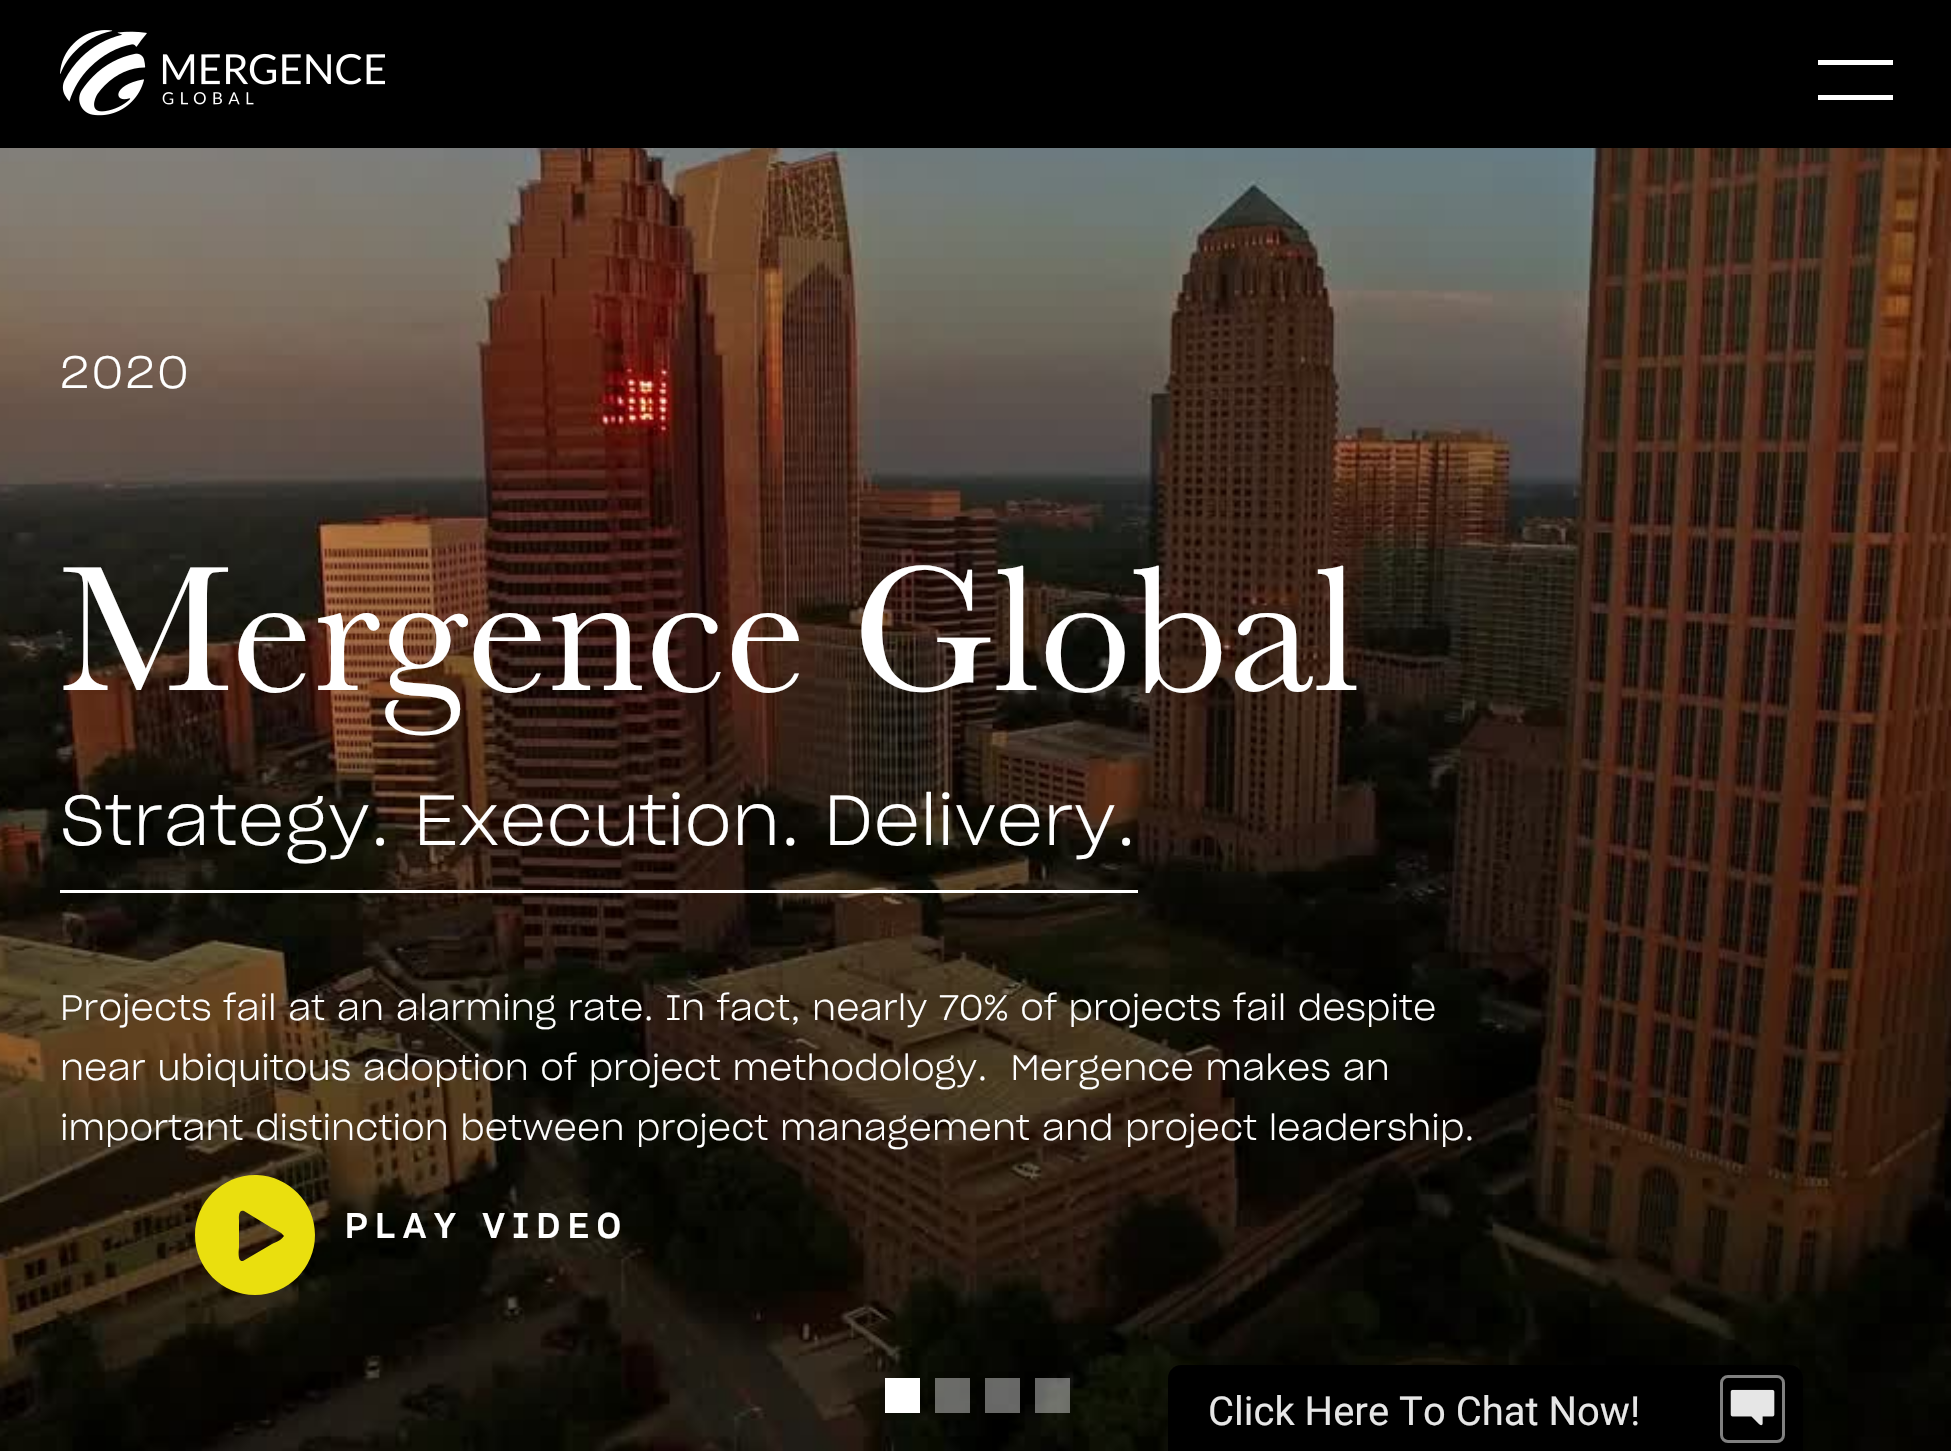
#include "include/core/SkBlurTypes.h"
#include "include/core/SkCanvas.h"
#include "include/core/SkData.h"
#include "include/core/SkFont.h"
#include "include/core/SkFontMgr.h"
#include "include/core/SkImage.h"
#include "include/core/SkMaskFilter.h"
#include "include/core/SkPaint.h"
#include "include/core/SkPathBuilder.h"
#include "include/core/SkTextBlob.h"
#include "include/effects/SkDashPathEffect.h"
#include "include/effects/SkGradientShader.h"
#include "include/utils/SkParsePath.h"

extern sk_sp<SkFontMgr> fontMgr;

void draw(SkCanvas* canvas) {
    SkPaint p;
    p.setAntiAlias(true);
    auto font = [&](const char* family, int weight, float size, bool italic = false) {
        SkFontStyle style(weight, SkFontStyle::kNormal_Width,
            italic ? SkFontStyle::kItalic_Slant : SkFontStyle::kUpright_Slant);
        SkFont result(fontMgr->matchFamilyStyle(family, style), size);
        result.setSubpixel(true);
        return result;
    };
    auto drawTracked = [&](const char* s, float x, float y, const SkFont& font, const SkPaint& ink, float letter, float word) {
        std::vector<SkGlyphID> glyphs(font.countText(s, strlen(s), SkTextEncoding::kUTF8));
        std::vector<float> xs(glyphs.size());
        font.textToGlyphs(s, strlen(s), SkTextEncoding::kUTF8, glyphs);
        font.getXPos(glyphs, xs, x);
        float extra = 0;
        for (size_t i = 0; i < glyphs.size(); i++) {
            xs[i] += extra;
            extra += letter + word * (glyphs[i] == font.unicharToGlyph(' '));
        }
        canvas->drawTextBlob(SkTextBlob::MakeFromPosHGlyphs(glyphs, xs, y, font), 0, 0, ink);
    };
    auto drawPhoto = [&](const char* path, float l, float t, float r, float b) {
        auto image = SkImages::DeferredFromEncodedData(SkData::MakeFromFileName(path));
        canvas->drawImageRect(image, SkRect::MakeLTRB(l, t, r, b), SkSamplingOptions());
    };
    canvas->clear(0xFFFFFFFF);
    p.setColor(0xFF000000);
    canvas->drawRect(SkRect::MakeLTRB(0, 0, 1951, 148), p);
    drawPhoto("media/1.png", 60, 30, 385, 116);
    p.setColor(0xFFFFFFFF);
    canvas->drawRect(SkRect::MakeLTRB(1818, 60, 1893, 65), p);
    canvas->drawRect(SkRect::MakeLTRB(1818, 95, 1893, 100), p);
    drawPhoto("media/2.png", 0, 148, 1951, 1451);
    auto font1 = font("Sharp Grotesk", 300, 45);
    drawTracked("2020", 60, 388, font1, p, 2.5f, 0);
    auto font2 = font("Baskerville", 400, 185);
    canvas->drawString("Mergence Global", 60, 690, font2, p);
    canvas->drawRect(SkRect::MakeLTRB(60, 890, 1138, 893), p);
    auto font3 = font("Sharp Grotesk", 300, 70);
    canvas->drawString("Strategy. Execution. Delivery.", 60, 845, font3, p);
    auto font4 = font("Sharp Grotesk", 300, 35);
    {
        const struct { const char* s; float x, y; } items[] = {
            {"Projects fail at an alarming rate. In fact, nearly 70% of projects fail despite", 60, 1020},
            {"near ubiquitous adoption of project methodology.  Mergence makes an", 60, 1080},
            {"important distinction between project management and project leadership.", 60, 1140},
        };
        for (auto [s, x, y] : items) {
            canvas->drawString(s, x, y, font4, p);
        }
    }
    {
        const struct { float l, t, r, b; SkColor color; } items[] = {
            {885, 1378, 920, 1413, 0xFFFFFFFF},
            {935, 1378, 970, 1413, 0x66FFFFFF},
            {985, 1378, 1020, 1413, 0x66FFFFFF},
            {1035, 1378, 1070, 1413, 0x66FFFFFF},
        };
        for (auto [l, t, r, b, color] : items) {
            p.setColor(color);
            canvas->drawRect(SkRect::MakeLTRB(l, t, r, b), p);
        }
    }
    p.setColor(0xFFEADF0E);
    canvas->drawPath(SkPathBuilder().moveTo(195, 1235).cubicTo(195, 1202, 223, 1174, 257, 1175).cubicTo(288, 1176, 315, 1202, 315, 1235).cubicTo(315, 1268, 288, 1295, 255, 1295).cubicTo(222, 1295, 195, 1268, 195, 1235).close().moveTo(284, 1236).cubicTo(281, 1232, 276, 1230, 272, 1228).lineTo(244, 1211).cubicTo(238, 1209, 239, 1218, 239, 1220).lineTo(239, 1247).cubicTo(239, 1249, 237, 1262, 243, 1261).lineTo(272, 1244).cubicTo(278, 1241, 280, 1241, 284, 1236).close().detach(), p);
    auto font5 = font("Sharp Grotesk", 500, 35);
    p.setColor(0xFFFFFFFF);
    drawTracked("PLAY VIDEO", 345, 1238, font5, p, 7.5f, 0);
    p.setColor(0x66000000);
    p.setMaskFilter(SkMaskFilter::MakeBlur(kNormal_SkBlurStyle, 5));
    canvas->drawRoundRect(SkRect::MakeLTRB(1170, 1368, 1805, 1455), 13, 13, p);
    p.setMaskFilter(nullptr);
    p.setColor(0xFF000000);
    canvas->drawPath(SkPathBuilder().moveTo(1181, 1365).lineTo(1790, 1365).cubicTo(1797, 1365, 1803, 1371, 1803, 1378).lineTo(1803, 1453).lineTo(1168, 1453).lineTo(1168, 1378).cubicTo(1168, 1371, 1174, 1365, 1181, 1365).close().detach(), p);
    auto font6 = font("Roboto", 400, 40);
    p.setColor(0xFFE6E6E6);
    canvas->drawString("Click Here To Chat Now!", 1208, 1425, font6, p);
    p.setStyle(SkPaint::kStroke_Style);
    p.setStrokeWidth(3);
    p.setColor(0xFF808080);
    canvas->drawRoundRect(SkRect::MakeLTRB(1721.5f, 1376.5f, 1783.5f, 1441.5f), 6.5f, 6.5f, p);
    drawPhoto("media/3.png", 1730, 1389, 1775, 1426);
}
